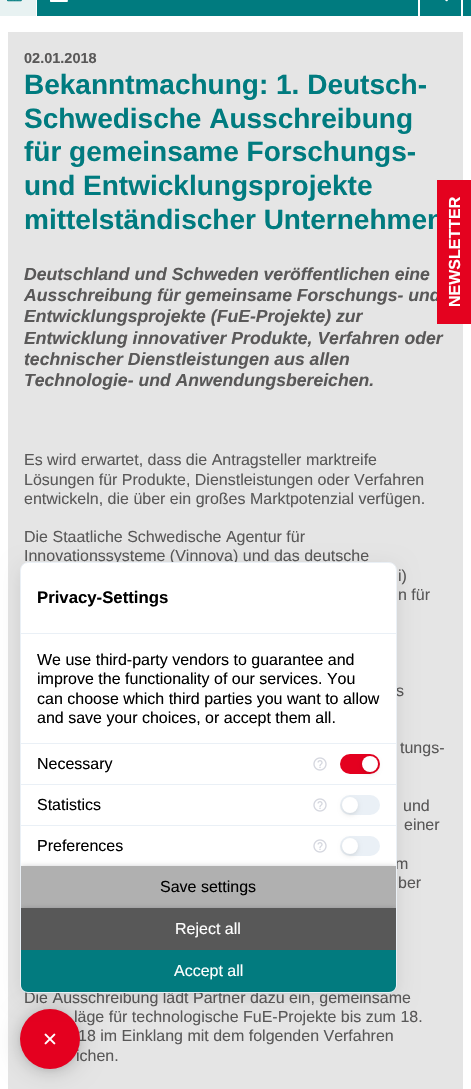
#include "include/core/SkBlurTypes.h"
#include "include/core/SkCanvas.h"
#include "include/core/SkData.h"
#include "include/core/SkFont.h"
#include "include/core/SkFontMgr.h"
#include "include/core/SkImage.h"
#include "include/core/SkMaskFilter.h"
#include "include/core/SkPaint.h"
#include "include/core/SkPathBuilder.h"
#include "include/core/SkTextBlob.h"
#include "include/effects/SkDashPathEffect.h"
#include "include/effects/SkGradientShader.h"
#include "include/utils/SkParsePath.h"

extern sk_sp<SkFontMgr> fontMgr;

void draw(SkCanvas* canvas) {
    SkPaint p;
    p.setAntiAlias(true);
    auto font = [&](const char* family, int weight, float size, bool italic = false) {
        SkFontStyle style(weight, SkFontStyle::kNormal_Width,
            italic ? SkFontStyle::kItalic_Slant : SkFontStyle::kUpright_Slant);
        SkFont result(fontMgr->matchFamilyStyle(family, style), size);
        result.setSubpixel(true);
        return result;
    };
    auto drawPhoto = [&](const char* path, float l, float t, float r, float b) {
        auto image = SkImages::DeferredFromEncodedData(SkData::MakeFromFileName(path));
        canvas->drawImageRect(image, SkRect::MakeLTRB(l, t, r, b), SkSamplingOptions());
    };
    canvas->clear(0xFFFFFFFF);
    {
        const struct { float l, t, r, b; SkColor color; } items[] = {
            {37, 0, 471, 16, 0xFF007B7F},
            {462, 0, 463, 16, 0xFFFFFFFF},
            {0, 0, 36, 16, 0xFFE8F2F2},
        };
        for (auto [l, t, r, b, color] : items) {
            p.setColor(color);
            canvas->drawRect(SkRect::MakeLTRB(l, t, r, b), p);
        }
    }
    drawPhoto("media/1.png", 7, 0, 22, 2);
    drawPhoto("media/2.png", 50, 0, 68, 2);
    {
        const struct { float l, t, r, b; SkColor color; } items[] = {
            {418, 0, 419, 16, 0xFFFFFFFF},
            {461, 0, 462, 17, 0xFFFFFFFF},
            {419, 0, 420, 17, 0xFFFFFFFF},
        };
        for (auto [l, t, r, b, color] : items) {
            p.setColor(color);
            canvas->drawRect(SkRect::MakeLTRB(l, t, r, b), p);
        }
    }
    drawPhoto("media/3.png", 445, 0, 448, 2);
    p.setColor(0xFFE5E5E5);
    canvas->drawRect(SkRect::MakeLTRB(8, 32, 463, 1089), p);
    auto font1 = font("Liberation Sans", 700, 14.5f);
    p.setColor(0xFF595858);
    canvas->drawString("02.01.2018", 24, 63, font1, p);
    auto font2 = font("Liberation Sans", 700, 28);
    p.setColor(0xFF007B7F);
    {
        const struct { const char* s; float x, y; } items[] = {
            {"Bekanntmachung: 1. Deutsch-", 24, 94},
            {"Schwedische Ausschreibung", 24, 128},
            {"für gemeinsame Forschungs-", 24, 161},
            {"und Entwicklungsprojekte", 24, 195},
            {"mittelständischer Unternehmen", 24, 229},
        };
        for (auto [s, x, y] : items) {
            canvas->drawString(s, x, y, font2, p);
        }
    }
    auto font3 = font("Liberation Sans", 700, 17.6f, true);
    p.setColor(0xFF595858);
    {
        const struct { const char* s; float x, y; } items[] = {
            {"Deutschland und Schweden veröffentlichen eine", 24, 280},
            {"Ausschreibung für gemeinsame Forschungs- und", 24, 301},
            {"Entwicklungsprojekte (FuE-Projekte) zur", 24, 322},
            {"Entwicklung innovativer Produkte, Verfahren oder", 24, 344},
            {"technischer Dienstleistungen aus allen", 24, 365},
            {"Technologie- und Anwendungsbereichen.", 24, 386},
        };
        for (auto [s, x, y] : items) {
            canvas->drawString(s, x, y, font3, p);
        }
    }
    auto font4 = font("Liberation Sans", 400, 16);
    {
        const struct { const char* s; float x, y; } items[] = {
            {"Es wird erwartet, dass die Antragsteller marktreife", 24, 465},
            {"Lösungen für Produkte, Dienstleistungen oder Verfahren", 24, 485},
            {"entwickeln, die über ein großes Marktpotenzial verfügen.", 24, 504},
            {"Die Staatliche Schwedische Agentur für", 24, 542},
            {"Innovationssysteme (Vinnova) und das deutsche", 24, 561},
            {"i)", 398, 581},
            {"n für", 398, 600},
            {"s", 396, 696},
            {"tungs-", 400, 753},
            {"und", 403, 811},
            {"einer", 404, 830},
            {"m", 395, 869},
            {"ber", 398, 888},
            {"Die Ausschreibung lädt Partner dazu ein, gemeinsame", 24, 1003},
            {"läge für technologische FuE-Projekte bis zum 18.", 74, 1022},
            {"18 im Einklang mit dem folgenden Verfahren", 78, 1041},
            {"ichen.", 76, 1061},
        };
        for (auto [s, x, y] : items) {
            canvas->drawString(s, x, y, font4, p);
        }
    }
    p.setColor(0xFFE4021F);
    canvas->drawRect(SkRect::MakeLTRB(437, 180, 471, 324), p);
    auto font5 = font("Liberation Sans", 700, 16);
    p.setColor(0xFFFFFFFF);
    canvas->save();
    canvas->rotate(-90, 460, 307);
    canvas->drawString("NEWSLETTER", 460, 307, font5, p);
    canvas->restore();
    p.setColor(0x33000000);
    p.setMaskFilter(SkMaskFilter::MakeBlur(kNormal_SkBlurStyle, 12));
    canvas->drawRoundRect(SkRect::MakeLTRB(20, 1011, 80, 1071), 30, 30, p);
    p.setMaskFilter(nullptr);
    p.setColor(0x1A000000);
    p.setMaskFilter(SkMaskFilter::MakeBlur(kNormal_SkBlurStyle, 3));
    canvas->drawRoundRect(SkRect::MakeLTRB(20, 1010, 80, 1070), 30, 30, p);
    p.setMaskFilter(nullptr);
    p.setColor(0xFFE4001F);
    canvas->drawCircle(50, 1039, 30, p);
    p.setColor(0x1A000000);
    p.setMaskFilter(SkMaskFilter::MakeBlur(kNormal_SkBlurStyle, 10));
    canvas->drawRoundRect(SkRect::MakeLTRB(20, 567, 397, 998), 8, 8, p);
    p.setMaskFilter(nullptr);
    p.setColor(0xFFFFFFFF);
    canvas->drawRoundRect(SkRect::MakeLTRB(20.5f, 562.5f, 396.5f, 992.5f), 7.5f, 7.5f, p);
    p.setStyle(SkPaint::kStroke_Style);
    p.setStrokeWidth(1);
    p.setColor(0xFFEAF0F6);
    canvas->drawRoundRect(SkRect::MakeLTRB(20.5f, 562.5f, 396.5f, 992.5f), 7.5f, 7.5f, p);
    auto font6 = font("Liberation Sans", 700, 16.75f);
    p.setStyle(SkPaint::kFill_Style);
    p.setColor(0xFF000000);
    canvas->drawString("Privacy-Settings", 37, 603, font6, p);
    p.setColor(0xFFEAF0F6);
    canvas->drawRect(SkRect::MakeLTRB(21, 633, 396, 634), p);
    p.setColor(0xFF000000);
    {
        const struct { const char* s; float x, y; } items[] = {
            {"We use third-party vendors to guarantee and", 37, 665},
            {"improve the functionality of our services. You", 37, 684},
            {"can choose which third parties you want to allow", 37, 704},
            {"and save your choices, or accept them all.", 37, 723},
        };
        for (auto [s, x, y] : items) {
            canvas->drawString(s, x, y, font4, p);
        }
    }
    p.setColor(0xFFEAF0F6);
    canvas->drawRect(SkRect::MakeLTRB(21, 743, 396, 744), p);
    p.setColor(0xFF000000);
    canvas->drawString("Necessary", 37, 769, font4, p);
    drawPhoto("media/4.png", 313, 757, 327, 771);
    p.setColor(0xFFE4001F);
    canvas->drawRoundRect(SkRect::MakeLTRB(340, 754, 380, 774), 10, 10, p);
    p.setColor(0x1A000000);
    p.setMaskFilter(SkMaskFilter::MakeBlur(kNormal_SkBlurStyle, 2));
    canvas->drawRoundRect(SkRect::MakeLTRB(362, 758, 378, 774), 8, 8, p);
    p.setMaskFilter(nullptr);
    p.setColor(0xFFFFFFFF);
    canvas->drawCircle(370, 764, 8, p);
    p.setColor(0xFFEAF0F6);
    canvas->drawRect(SkRect::MakeLTRB(21, 784, 396, 785), p);
    p.setColor(0xFF000000);
    canvas->drawString("Statistics", 37, 810, font4, p);
    drawPhoto("media/4.png", 313, 798, 327, 812);
    p.setColor(0xFFEAF0F6);
    canvas->drawRoundRect(SkRect::MakeLTRB(340, 795, 380, 815), 10, 10, p);
    p.setColor(0x1A000000);
    p.setMaskFilter(SkMaskFilter::MakeBlur(kNormal_SkBlurStyle, 2));
    canvas->drawRoundRect(SkRect::MakeLTRB(342, 799, 358, 815), 8, 8, p);
    p.setMaskFilter(nullptr);
    p.setColor(0xFFFFFFFF);
    canvas->drawCircle(350, 805, 8, p);
    p.setColor(0xFFEAF0F6);
    canvas->drawRect(SkRect::MakeLTRB(21, 825, 396, 826), p);
    p.setColor(0xFF000000);
    canvas->drawString("Preferences", 37, 851, font4, p);
    drawPhoto("media/4.png", 313, 839, 327, 853);
    p.setColor(0xFFEAF0F6);
    canvas->drawRoundRect(SkRect::MakeLTRB(340, 836, 380, 856), 10, 10, p);
    p.setColor(0x1A000000);
    p.setMaskFilter(SkMaskFilter::MakeBlur(kNormal_SkBlurStyle, 2));
    canvas->drawRoundRect(SkRect::MakeLTRB(342, 840, 358, 856), 8, 8, p);
    p.setMaskFilter(nullptr);
    p.setColor(0xFFFFFFFF);
    canvas->drawCircle(350, 846, 8, p);
    canvas->save();
    canvas->clipPath(SkPathBuilder().moveTo(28, 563).lineTo(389, 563).cubicTo(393, 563, 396, 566, 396, 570).lineTo(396, 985).cubicTo(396, 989, 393, 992, 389, 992).lineTo(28, 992).cubicTo(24, 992, 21, 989, 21, 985).lineTo(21, 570).cubicTo(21, 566, 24, 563, 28, 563).close().detach(), true);
    p.setColor(0x47202124);
    p.setMaskFilter(SkMaskFilter::MakeBlur(kNormal_SkBlurStyle, 3));
    canvas->drawRect(SkRect::MakeLTRB(21, 867, 396, 909), p);
    p.setMaskFilter(nullptr);
    canvas->restore();
    p.setColor(0xFFB0B0B0);
    canvas->drawRect(SkRect::MakeLTRB(21, 866, 396, 908), p);
    p.setColor(0xFF000000);
    canvas->drawString("Save settings", 160, 892, font4, p);
    canvas->save();
    canvas->clipPath(SkPathBuilder().moveTo(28, 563).lineTo(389, 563).cubicTo(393, 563, 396, 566, 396, 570).lineTo(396, 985).cubicTo(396, 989, 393, 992, 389, 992).lineTo(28, 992).cubicTo(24, 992, 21, 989, 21, 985).lineTo(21, 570).cubicTo(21, 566, 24, 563, 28, 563).close().detach(), true);
    p.setColor(0x47202124);
    p.setMaskFilter(SkMaskFilter::MakeBlur(kNormal_SkBlurStyle, 3));
    canvas->drawRect(SkRect::MakeLTRB(21, 909, 396, 951), p);
    p.setMaskFilter(nullptr);
    canvas->restore();
    p.setColor(0xFF585858);
    canvas->drawRect(SkRect::MakeLTRB(21, 908, 396, 950), p);
    p.setColor(0xFFFFFFFF);
    canvas->drawString("Reject all", 175, 934, font4, p);
    p.setColor(0xFF027B7F);
    canvas->drawPath(SkPathBuilder().moveTo(21, 950).lineTo(396, 950).lineTo(396, 985).cubicTo(396, 989, 393, 992, 389, 992).lineTo(28, 992).cubicTo(24, 992, 21, 989, 21, 985).close().detach(), p);
    p.setColor(0xFFFFFFFF);
    canvas->drawString("Accept all", 174, 976, font4, p);
    drawPhoto("media/5.png", 44, 1033, 56, 1045);
}
